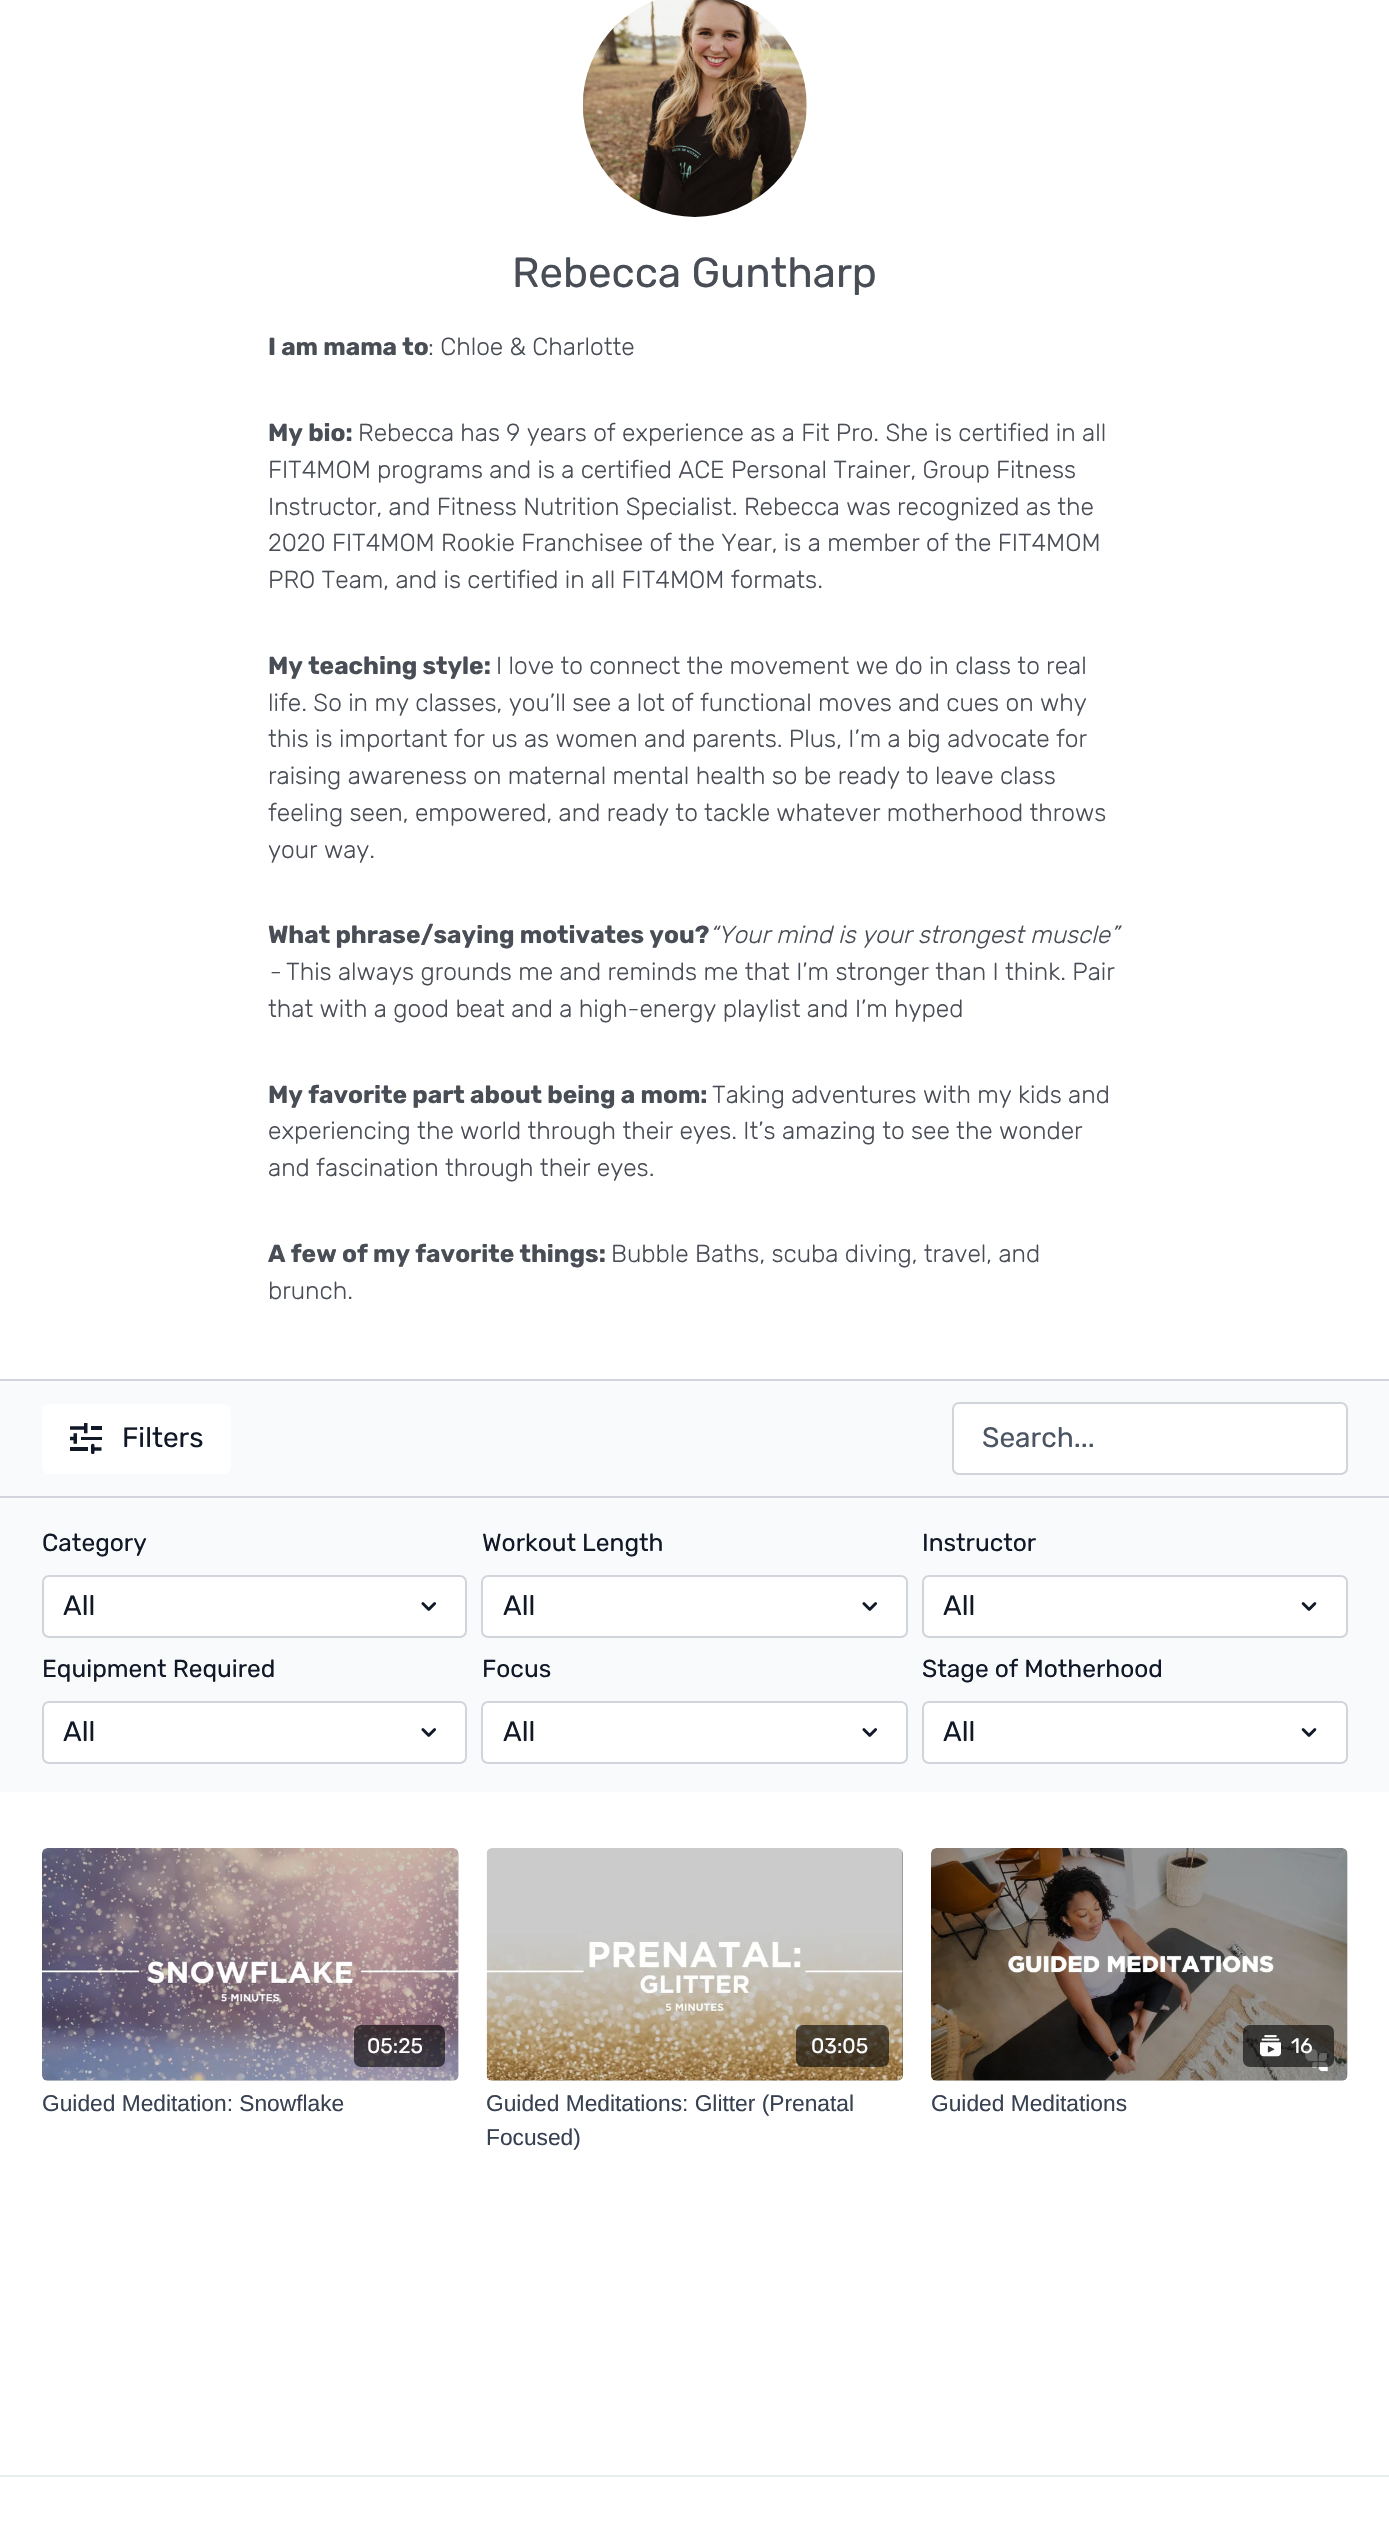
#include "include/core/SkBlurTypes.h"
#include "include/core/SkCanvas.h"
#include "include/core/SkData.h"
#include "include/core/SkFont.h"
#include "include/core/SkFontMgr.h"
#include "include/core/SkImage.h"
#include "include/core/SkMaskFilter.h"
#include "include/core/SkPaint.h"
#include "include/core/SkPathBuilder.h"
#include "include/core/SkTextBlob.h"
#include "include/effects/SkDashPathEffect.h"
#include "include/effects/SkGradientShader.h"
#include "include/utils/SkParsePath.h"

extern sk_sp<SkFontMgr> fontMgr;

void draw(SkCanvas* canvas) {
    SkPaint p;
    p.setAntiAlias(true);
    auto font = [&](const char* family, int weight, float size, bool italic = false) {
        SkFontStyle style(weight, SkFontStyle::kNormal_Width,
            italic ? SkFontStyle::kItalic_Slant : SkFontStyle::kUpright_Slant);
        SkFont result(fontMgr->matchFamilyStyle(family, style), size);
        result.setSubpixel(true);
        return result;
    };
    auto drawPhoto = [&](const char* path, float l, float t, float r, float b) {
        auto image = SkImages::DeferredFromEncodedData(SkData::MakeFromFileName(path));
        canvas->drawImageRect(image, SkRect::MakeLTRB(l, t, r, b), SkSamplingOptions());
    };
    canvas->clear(0xFFFFFFFF);
    p.setColor(0xFFD1D5DB);
    canvas->drawRect(SkRect::MakeLTRB(0, 1379, 1389, 1381), p);
    drawPhoto("media/1.png", 582, 0, 807, 217);
    auto font1 = font("Rubik", 400, 42);
    p.setColor(0xFF494D55);
    canvas->drawString("Rebecca Guntharp", 512, 287, font1, p);
    auto font2 = font("Rubik", 700, 24.5f);
    canvas->drawString("I am mama to", 268, 355, font2, p);
    auto font3 = font("Rubik", 300, 24.5f);
    canvas->drawString(": Chloe & Charlotte", 428, 355, font3, p);
    canvas->drawString("My bio:", 268, 441, font2, p);
    {
        const struct { const char* s; float x, y; } items[] = {
            {"Rebecca has 9 years of experience as a Fit Pro. She is certified in all", 358, 441},
            {"FIT4MOM programs and is a certified ACE Personal Trainer, Group Fitness", 268, 478},
            {"Instructor, and Fitness Nutrition Specialist. Rebecca was recognized as the", 268, 515},
            {"2020 FIT4MOM Rookie Franchisee of the Year, is a member of the FIT4MOM", 268, 551},
            {"PRO Team, and is certified in all FIT4MOM formats.", 268, 588},
        };
        for (auto [s, x, y] : items) {
            canvas->drawString(s, x, y, font3, p);
        }
    }
    canvas->drawString("My teaching style:", 268, 674, font2, p);
    {
        const struct { const char* s; float x, y; } items[] = {
            {"I love to connect the movement we do in class to real", 496, 674},
            {"life. So in my classes, you’ll see a lot of functional moves and cues on why", 268, 711},
            {"this is important for us as women and parents. Plus, I’m a big advocate for", 268, 747},
            {"raising awareness on maternal mental health so be ready to leave class", 268, 784},
            {"feeling seen, empowered, and ready to tackle whatever motherhood throws", 268, 821},
            {"your way.", 268, 858},
        };
        for (auto [s, x, y] : items) {
            canvas->drawString(s, x, y, font3, p);
        }
    }
    canvas->drawString("What phrase/saying motivates you?", 268, 943, font2, p);
    auto font4 = font("Rubik", 300, 24.5f, true);
    canvas->drawString("“Your mind is your strongest muscle”", 709, 943, font4, p);
    canvas->drawString("-", 268, 980, font4, p);
    canvas->drawString("This always grounds me and reminds me that I’m stronger than I think. Pair", 286, 980, font3, p);
    canvas->drawString("that with a good beat and a high-energy playlist and I’m hyped", 268, 1017, font3, p);
    canvas->drawString("My favorite part about being a mom:", 268, 1103, font2, p);
    {
        const struct { const char* s; float x, y; } items[] = {
            {"Taking adventures with my kids and", 712, 1103},
            {"experiencing the world through their eyes. It’s amazing to see the wonder", 268, 1139},
            {"and fascination through their eyes.", 268, 1176},
        };
        for (auto [s, x, y] : items) {
            canvas->drawString(s, x, y, font3, p);
        }
    }
    canvas->drawString("A few of my favorite things:", 268, 1262, font2, p);
    canvas->drawString("Bubble Baths, scuba diving, travel, and", 611, 1262, font3, p);
    canvas->drawString("brunch.", 268, 1299, font3, p);
    p.setColor(0xFFF9FAFB);
    canvas->drawRect(SkRect::MakeLTRB(0, 1381, 1389, 1792), p);
    p.setColor(0xFFD1D5DB);
    canvas->drawRect(SkRect::MakeLTRB(0, 1496, 1389, 1498), p);
    p.setColor(0xFFFFFFFF);
    canvas->drawRoundRect(SkRect::MakeLTRB(42, 1404, 231, 1474), 7, 7, p);
    drawPhoto("media/2.png", 70, 1423, 102, 1454);
    auto font5 = font("Rubik", 400, 28);
    p.setColor(0xFF111827);
    canvas->drawString("Filters", 122, 1447, font5, p);
    p.setColor(0xFFFFFFFF);
    canvas->drawRoundRect(SkRect::MakeLTRB(953, 1403, 1347, 1474), 6, 6, p);
    p.setStyle(SkPaint::kStroke_Style);
    p.setStrokeWidth(2);
    p.setColor(0xFFD1D5DB);
    canvas->drawRoundRect(SkRect::MakeLTRB(953, 1403, 1347, 1474), 6, 6, p);
    p.setStyle(SkPaint::kFill_Style);
    p.setColor(0xFF4B5563);
    canvas->drawString("Search...", 982, 1447, font5, p);
    auto font6 = font("Rubik", 400, 24.5f);
    p.setColor(0xFF111827);
    canvas->drawString("Category", 42, 1551, font6, p);
    p.setColor(0xFFFFFFFF);
    canvas->drawRoundRect(SkRect::MakeLTRB(42, 1575, 467, 1638), 7, 7, p);
    drawPhoto("media/3.png", 421, 1602, 436, 1611);
    p.setStyle(SkPaint::kStroke_Style);
    p.setColor(0xFFD1D5DB);
    canvas->drawRoundRect(SkRect::MakeLTRB(43, 1576, 466, 1637), 6, 6, p);
    p.setStyle(SkPaint::kFill_Style);
    p.setColor(0xFF111827);
    canvas->drawString("All", 63, 1615, font5, p);
    canvas->drawString("Workout Length", 482, 1551, font6, p);
    p.setColor(0xFFFFFFFF);
    canvas->drawRoundRect(SkRect::MakeLTRB(481, 1575, 908, 1638), 7, 7, p);
    drawPhoto("media/3.png", 862, 1602, 877, 1611);
    p.setStyle(SkPaint::kStroke_Style);
    p.setColor(0xFFD1D5DB);
    canvas->drawRoundRect(SkRect::MakeLTRB(482, 1576, 907, 1637), 6, 6, p);
    p.setStyle(SkPaint::kFill_Style);
    p.setColor(0xFF111827);
    canvas->drawString("All", 503, 1615, font5, p);
    canvas->drawString("Instructor", 922, 1551, font6, p);
    p.setColor(0xFFFFFFFF);
    canvas->drawRoundRect(SkRect::MakeLTRB(922, 1575, 1348, 1638), 7, 7, p);
    drawPhoto("media/4.png", 1301, 1602, 1317, 1611);
    p.setStyle(SkPaint::kStroke_Style);
    p.setColor(0xFFD1D5DB);
    canvas->drawRoundRect(SkRect::MakeLTRB(923, 1576, 1347, 1637), 6, 6, p);
    p.setStyle(SkPaint::kFill_Style);
    p.setColor(0xFF111827);
    canvas->drawString("All", 943, 1615, font5, p);
    canvas->drawString("Equipment Required", 42, 1677, font6, p);
    p.setColor(0xFFFFFFFF);
    canvas->drawRoundRect(SkRect::MakeLTRB(42, 1701, 467, 1764), 7, 7, p);
    drawPhoto("media/3.png", 421, 1728, 436, 1737);
    p.setStyle(SkPaint::kStroke_Style);
    p.setColor(0xFFD1D5DB);
    canvas->drawRoundRect(SkRect::MakeLTRB(43, 1702, 466, 1763), 6, 6, p);
    p.setStyle(SkPaint::kFill_Style);
    p.setColor(0xFF111827);
    canvas->drawString("All", 63, 1741, font5, p);
    canvas->drawString("Focus", 482, 1677, font6, p);
    p.setColor(0xFFFFFFFF);
    canvas->drawRoundRect(SkRect::MakeLTRB(481, 1701, 908, 1764), 7, 7, p);
    drawPhoto("media/3.png", 862, 1728, 877, 1737);
    p.setStyle(SkPaint::kStroke_Style);
    p.setColor(0xFFD1D5DB);
    canvas->drawRoundRect(SkRect::MakeLTRB(482, 1702, 907, 1763), 6, 6, p);
    p.setStyle(SkPaint::kFill_Style);
    p.setColor(0xFF111827);
    canvas->drawString("All", 503, 1741, font5, p);
    canvas->drawString("Stage of Motherhood", 922, 1677, font6, p);
    p.setColor(0xFFFFFFFF);
    canvas->drawRoundRect(SkRect::MakeLTRB(922, 1701, 1348, 1764), 7, 7, p);
    drawPhoto("media/4.png", 1301, 1728, 1317, 1737);
    p.setStyle(SkPaint::kStroke_Style);
    p.setColor(0xFFD1D5DB);
    canvas->drawRoundRect(SkRect::MakeLTRB(923, 1702, 1347, 1763), 6, 6, p);
    p.setStyle(SkPaint::kFill_Style);
    p.setColor(0xFF111827);
    canvas->drawString("All", 943, 1741, font5, p);
    {
        const SkColor colors[] = {0xFFDEDEDE, 0xFFE1E1E1, 0xFFE3E3E3};
        const float stops[] = {0.08f, 0.18f, 0.33f};
        const SkPoint ends[] = {{42, 1964}, {459, 1964}};
        p.setShader(SkGradientShader::MakeLinear(ends, colors, stops, 3, SkTileMode::kClamp));
        p.setAlpha(255);
    }
    canvas->drawRoundRect(SkRect::MakeLTRB(42, 1848, 459, 2081), 7, 7, p);
    drawPhoto("media/5.png", 42, 1848, 459, 2081);
    p.setShader(nullptr);
    p.setColor(0x99000000);
    canvas->drawRoundRect(SkRect::MakeLTRB(354, 2025, 445, 2067), 7, 7, p);
    auto font7 = font("Rubik", 400, 21);
    p.setColor(0xFFFFFFFF);
    canvas->drawString("05:25", 367, 2053, font7, p);
    auto font8 = font("Liberation Sans", 400, 22.75f);
    p.setColor(0xFF374151);
    canvas->drawString("Guided Meditation: Snowflake", 42, 2111, font8, p);
    {
        const SkColor colors[] = {0xFFDEDEDE, 0xFFE1E1E1, 0xFFE3E3E3};
        const float stops[] = {0.08f, 0.18f, 0.33f};
        const SkPoint ends[] = {{487, 1964}, {903, 1964}};
        p.setShader(SkGradientShader::MakeLinear(ends, colors, stops, 3, SkTileMode::kClamp));
        p.setAlpha(255);
    }
    canvas->drawRoundRect(SkRect::MakeLTRB(487, 1848, 903, 2081), 7, 7, p);
    drawPhoto("media/6.png", 486, 1848, 903, 2081);
    p.setShader(nullptr);
    p.setColor(0x99000000);
    canvas->drawRoundRect(SkRect::MakeLTRB(796, 2025, 889, 2067), 7, 7, p);
    p.setColor(0xFFFFFFFF);
    canvas->drawString("03:05", 811, 2053, font7, p);
    p.setColor(0xFF374151);
    canvas->drawString("Guided Meditations: Glitter (Prenatal", 486, 2111, font8, p);
    canvas->drawString("Focused)", 486, 2145, font8, p);
    {
        const SkColor colors[] = {0xFFDEDEDE, 0xFFE1E1E1, 0xFFE3E3E3};
        const float stops[] = {0.08f, 0.18f, 0.33f};
        const SkPoint ends[] = {{931, 1964}, {1348, 1964}};
        p.setShader(SkGradientShader::MakeLinear(ends, colors, stops, 3, SkTileMode::kClamp));
        p.setAlpha(255);
    }
    canvas->drawRoundRect(SkRect::MakeLTRB(931, 1848, 1348, 2081), 7, 7, p);
    drawPhoto("media/7.png", 931, 1848, 1348, 2081);
    p.setShader(nullptr);
    p.setColor(0x99000000);
    canvas->drawRoundRect(SkRect::MakeLTRB(1243, 2025, 1334, 2067), 7, 7, p);
    drawPhoto("media/8.png", 1260, 2035, 1281, 2057);
    p.setColor(0xFFFFFFFF);
    canvas->drawString("16", 1291, 2053, font7, p);
    p.setColor(0xFF374151);
    canvas->drawString("Guided Meditations", 931, 2111, font8, p);
    p.setColor(0xFFE9EFEF);
    canvas->drawRect(SkRect::MakeLTRB(0, 2475, 1389, 2477), p);
}
